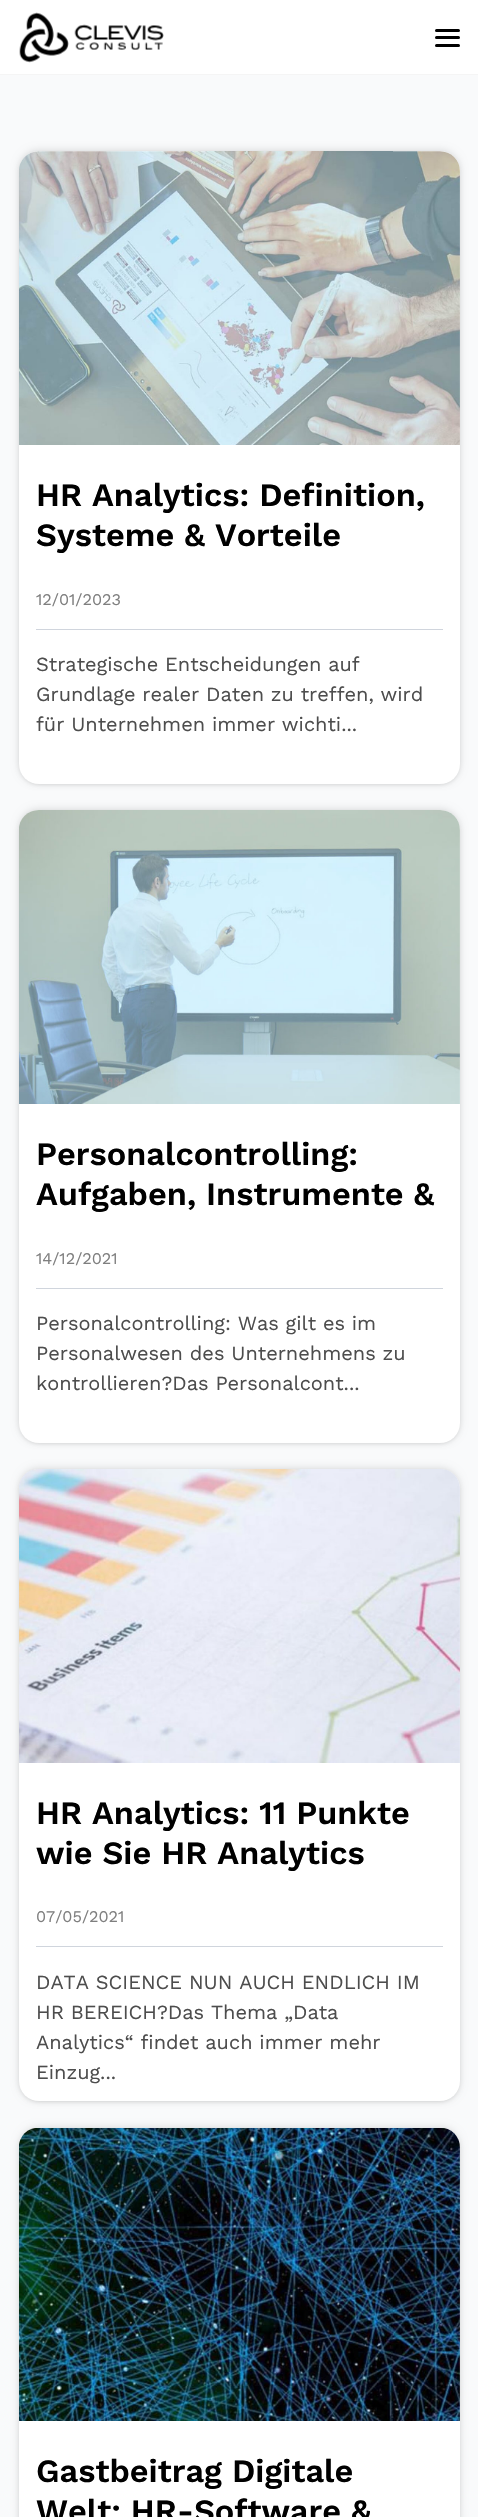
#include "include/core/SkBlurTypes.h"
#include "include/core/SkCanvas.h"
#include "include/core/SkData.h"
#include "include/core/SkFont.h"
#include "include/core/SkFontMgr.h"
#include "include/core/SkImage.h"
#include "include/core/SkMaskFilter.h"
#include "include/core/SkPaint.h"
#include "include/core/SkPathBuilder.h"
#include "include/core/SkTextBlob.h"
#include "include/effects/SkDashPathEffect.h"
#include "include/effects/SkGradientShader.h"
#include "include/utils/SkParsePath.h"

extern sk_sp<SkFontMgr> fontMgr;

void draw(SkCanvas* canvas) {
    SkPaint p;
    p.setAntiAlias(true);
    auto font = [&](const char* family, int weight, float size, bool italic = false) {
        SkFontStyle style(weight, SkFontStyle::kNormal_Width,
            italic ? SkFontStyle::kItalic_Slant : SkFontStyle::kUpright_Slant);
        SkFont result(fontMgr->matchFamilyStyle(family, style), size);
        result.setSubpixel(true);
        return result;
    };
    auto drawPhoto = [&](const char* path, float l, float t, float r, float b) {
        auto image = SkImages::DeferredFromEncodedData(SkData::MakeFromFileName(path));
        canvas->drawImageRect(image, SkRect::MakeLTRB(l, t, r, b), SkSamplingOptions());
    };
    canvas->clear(0xFFF9FAFB);
    p.setColor(0xFFFFFFFF);
    canvas->drawRect(SkRect::MakeLTRB(0, 0, 478, 74), p);
    p.setColor(0xFFF5F5F5);
    canvas->drawRect(SkRect::MakeLTRB(0, 74, 478, 75), p);
    drawPhoto("media/1.png", 19, 12, 164, 63);
    p.setColor(0xFF000000);
    canvas->drawRoundRect(SkRect::MakeLTRB(435, 36, 460, 39), 1.5f, 1.5f, p);
    canvas->drawRoundRect(SkRect::MakeLTRB(435, 29, 460, 32), 1.5f, 1.5f, p);
    canvas->drawRoundRect(SkRect::MakeLTRB(435, 44, 460, 47), 1.5f, 1.5f, p);
    p.setColor(0x26000000);
    p.setMaskFilter(SkMaskFilter::MakeBlur(kNormal_SkBlurStyle, 2.5f));
    canvas->drawRoundRect(SkRect::MakeLTRB(21, 156, 458, 784), 18, 18, p);
    p.setMaskFilter(nullptr);
    p.setMaskFilter(SkMaskFilter::MakeBlur(kNormal_SkBlurStyle, 4));
    canvas->drawRoundRect(SkRect::MakeLTRB(20, 151, 459, 781), 19, 19, p);
    p.setMaskFilter(nullptr);
    p.setColor(0xFFFFFFFF);
    canvas->drawRoundRect(SkRect::MakeLTRB(19, 151, 460, 784), 20, 20, p);
    drawPhoto("media/2.png", 19, 151, 460, 445);
    auto font1 = font("Work Sans", 600, 32.5f);
    p.setColor(0xFF000000);
    canvas->drawString("HR Analytics: Definition,", 36, 506, font1, p);
    canvas->drawString("Systeme & Vorteile", 36, 546, font1, p);
    p.setColor(0xFFD0D5DD);
    canvas->drawRect(SkRect::MakeLTRB(36, 629, 443, 630), p);
    auto font2 = font("Work Sans", 400, 16.25f);
    p.setColor(0xFF7F7F7F);
    canvas->drawString("12/01/2023", 36, 605, font2, p);
    auto font3 = font("Work Sans", 400, 20);
    p.setColor(0xFF4D4D4D);
    {
        const struct { const char* s; float x, y; } items[] = {
            {"Strategische Entscheidungen auf", 36, 671},
            {"Grundlage realer Daten zu treffen, wird", 36, 701},
            {"für Unternehmen immer wichti...", 36, 731},
        };
        for (auto [s, x, y] : items) {
            canvas->drawString(s, x, y, font3, p);
        }
    }
    p.setColor(0x26000000);
    p.setMaskFilter(SkMaskFilter::MakeBlur(kNormal_SkBlurStyle, 2.5f));
    canvas->drawRoundRect(SkRect::MakeLTRB(21, 815, 458, 1443), 18, 18, p);
    p.setMaskFilter(nullptr);
    p.setMaskFilter(SkMaskFilter::MakeBlur(kNormal_SkBlurStyle, 4));
    canvas->drawRoundRect(SkRect::MakeLTRB(20, 810, 459, 1440), 19, 19, p);
    p.setMaskFilter(nullptr);
    p.setColor(0xFFFFFFFF);
    canvas->drawRoundRect(SkRect::MakeLTRB(19, 810, 460, 1443), 20, 20, p);
    drawPhoto("media/3.png", 19, 810, 460, 1104);
    p.setColor(0xFF000000);
    canvas->drawString("Personalcontrolling:", 36, 1165, font1, p);
    canvas->drawString("Aufgaben, Instrumente &", 36, 1205, font1, p);
    p.setColor(0xFFD0D5DD);
    canvas->drawRect(SkRect::MakeLTRB(36, 1288, 443, 1289), p);
    p.setColor(0xFF7F7F7F);
    canvas->drawString("14/12/2021", 36, 1264, font2, p);
    p.setColor(0xFF4D4D4D);
    {
        const struct { const char* s; float x, y; } items[] = {
            {"Personalcontrolling: Was gilt es im", 36, 1330},
            {"Personalwesen des Unternehmens zu", 36, 1360},
            {"kontrollieren?Das Personalcont...", 36, 1390},
        };
        for (auto [s, x, y] : items) {
            canvas->drawString(s, x, y, font3, p);
        }
    }
    p.setColor(0x26000000);
    p.setMaskFilter(SkMaskFilter::MakeBlur(kNormal_SkBlurStyle, 2.5f));
    canvas->drawRoundRect(SkRect::MakeLTRB(21, 1474, 458, 2101), 18, 18, p);
    p.setMaskFilter(nullptr);
    p.setMaskFilter(SkMaskFilter::MakeBlur(kNormal_SkBlurStyle, 4));
    canvas->drawRoundRect(SkRect::MakeLTRB(20, 1469, 459, 2099), 19, 19, p);
    p.setMaskFilter(nullptr);
    p.setColor(0xFFFFFFFF);
    canvas->drawRoundRect(SkRect::MakeLTRB(19, 1469, 460, 2101), 20, 20, p);
    drawPhoto("media/4.png", 19, 1469, 460, 1763);
    p.setColor(0xFF000000);
    canvas->drawString("HR Analytics: 11 Punkte", 36, 1824, font1, p);
    canvas->drawString("wie Sie HR Analytics", 36, 1864, font1, p);
    p.setColor(0xFFD0D5DD);
    canvas->drawRect(SkRect::MakeLTRB(36, 1946, 443, 1947), p);
    p.setColor(0xFF7F7F7F);
    canvas->drawString("07/05/2021", 36, 1922, font2, p);
    p.setColor(0xFF4D4D4D);
    {
        const struct { const char* s; float x, y; } items[] = {
            {"DATA SCIENCE NUN AUCH ENDLICH IM", 36, 1989},
            {"HR BEREICH?Das Thema „Data", 36, 2019},
            {"Analytics“ findet auch immer mehr", 36, 2049},
            {"Einzug...", 36, 2079},
        };
        for (auto [s, x, y] : items) {
            canvas->drawString(s, x, y, font3, p);
        }
    }
    p.setColor(0x26000000);
    p.setMaskFilter(SkMaskFilter::MakeBlur(kNormal_SkBlurStyle, 2.5f));
    canvas->drawRoundRect(SkRect::MakeLTRB(21, 2133, 458, 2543), 18, 18, p);
    p.setMaskFilter(nullptr);
    p.setMaskFilter(SkMaskFilter::MakeBlur(kNormal_SkBlurStyle, 4));
    canvas->drawRoundRect(SkRect::MakeLTRB(20, 2128, 459, 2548), 19, 19, p);
    p.setMaskFilter(nullptr);
    p.setColor(0xFFFFFFFF);
    canvas->drawRoundRect(SkRect::MakeLTRB(19, 2128, 460, 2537), 20, 20, p);
    drawPhoto("media/5.png", 19, 2128, 460, 2421);
    p.setColor(0xFF000000);
    canvas->drawString("Gastbeitrag Digitale", 36, 2482, font1, p);
    canvas->drawString("Welt: HR-Software &", 36, 2522, font1, p);
}
